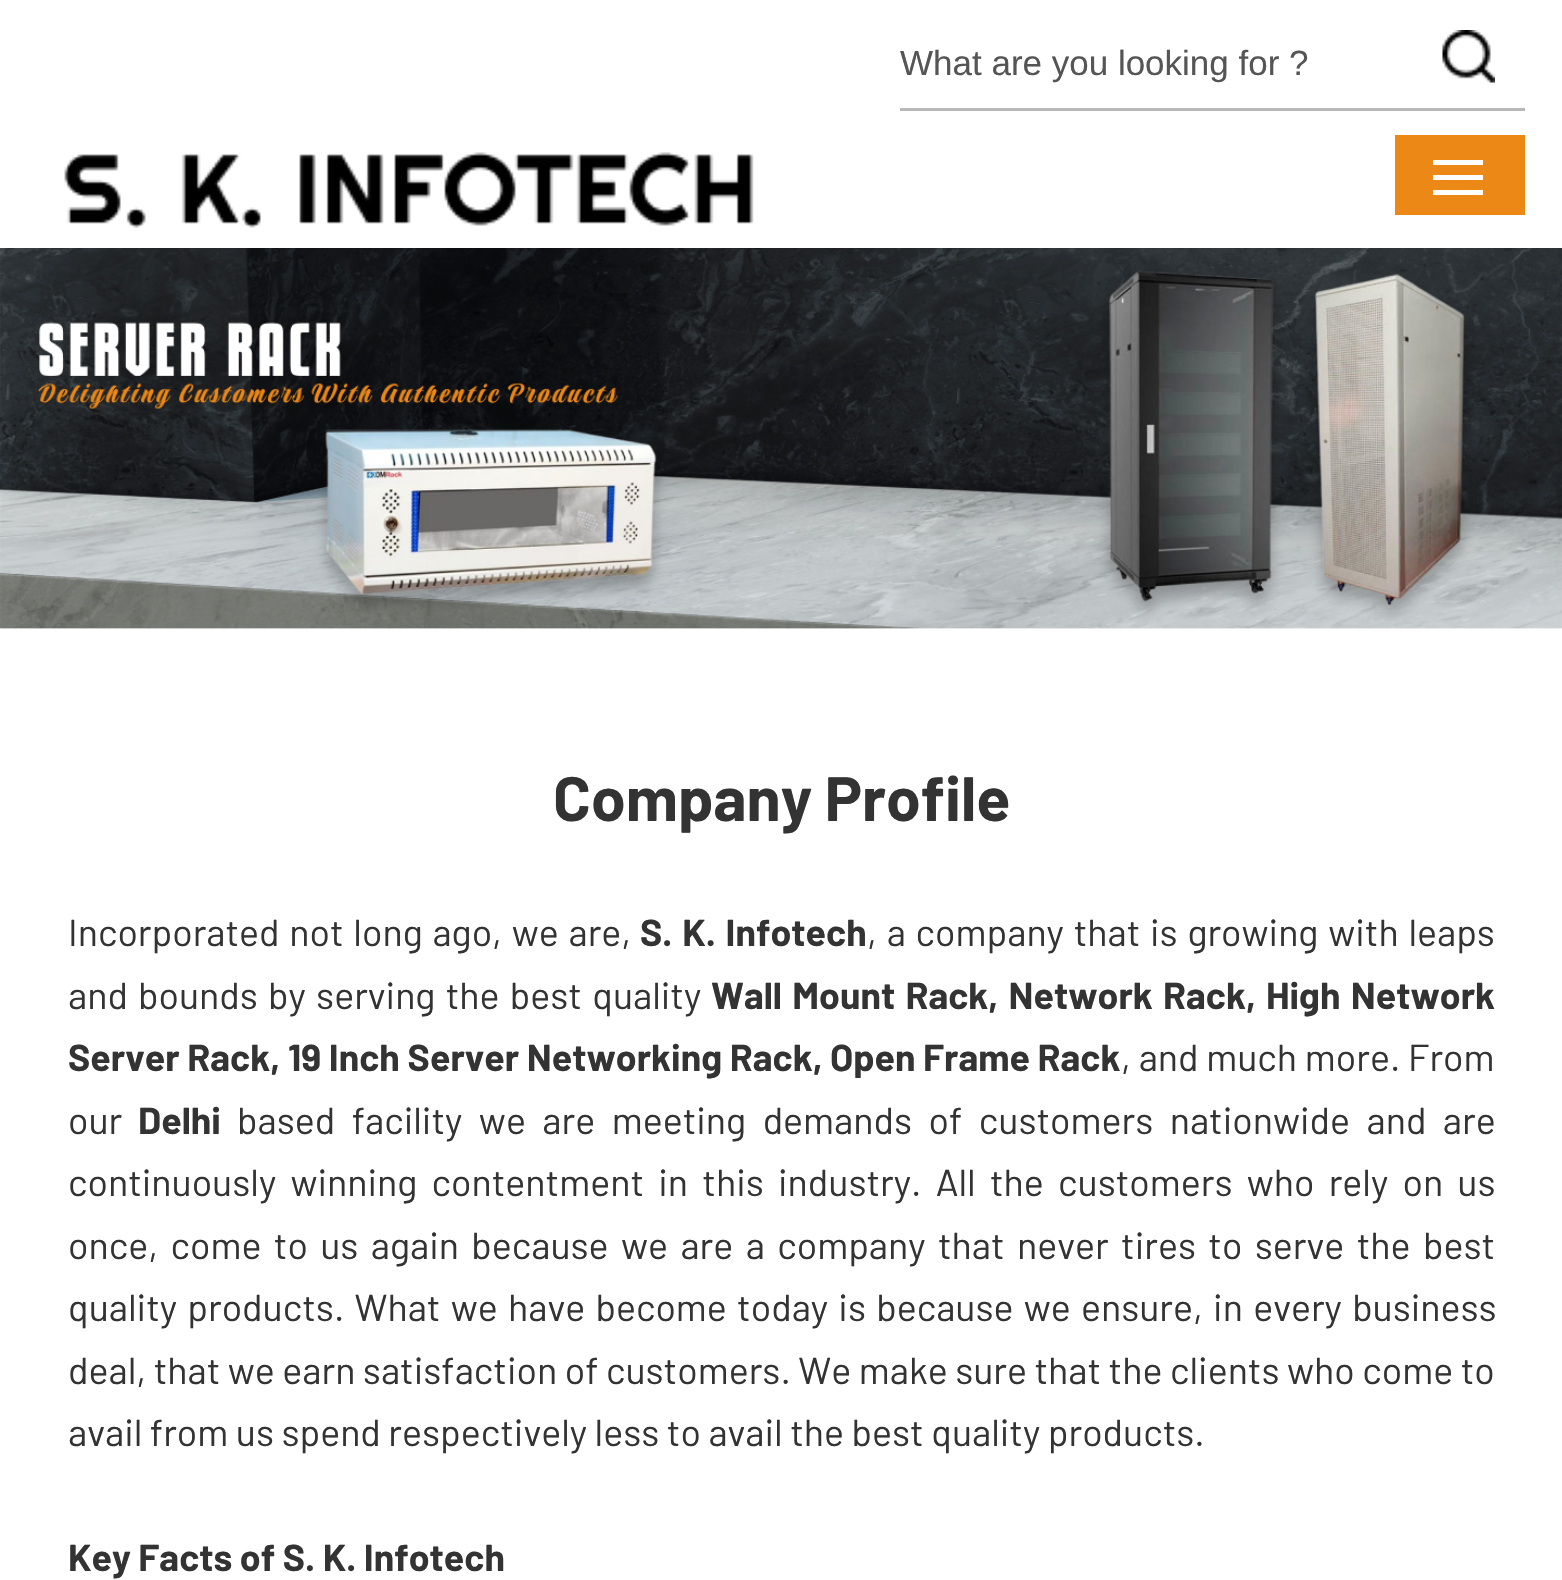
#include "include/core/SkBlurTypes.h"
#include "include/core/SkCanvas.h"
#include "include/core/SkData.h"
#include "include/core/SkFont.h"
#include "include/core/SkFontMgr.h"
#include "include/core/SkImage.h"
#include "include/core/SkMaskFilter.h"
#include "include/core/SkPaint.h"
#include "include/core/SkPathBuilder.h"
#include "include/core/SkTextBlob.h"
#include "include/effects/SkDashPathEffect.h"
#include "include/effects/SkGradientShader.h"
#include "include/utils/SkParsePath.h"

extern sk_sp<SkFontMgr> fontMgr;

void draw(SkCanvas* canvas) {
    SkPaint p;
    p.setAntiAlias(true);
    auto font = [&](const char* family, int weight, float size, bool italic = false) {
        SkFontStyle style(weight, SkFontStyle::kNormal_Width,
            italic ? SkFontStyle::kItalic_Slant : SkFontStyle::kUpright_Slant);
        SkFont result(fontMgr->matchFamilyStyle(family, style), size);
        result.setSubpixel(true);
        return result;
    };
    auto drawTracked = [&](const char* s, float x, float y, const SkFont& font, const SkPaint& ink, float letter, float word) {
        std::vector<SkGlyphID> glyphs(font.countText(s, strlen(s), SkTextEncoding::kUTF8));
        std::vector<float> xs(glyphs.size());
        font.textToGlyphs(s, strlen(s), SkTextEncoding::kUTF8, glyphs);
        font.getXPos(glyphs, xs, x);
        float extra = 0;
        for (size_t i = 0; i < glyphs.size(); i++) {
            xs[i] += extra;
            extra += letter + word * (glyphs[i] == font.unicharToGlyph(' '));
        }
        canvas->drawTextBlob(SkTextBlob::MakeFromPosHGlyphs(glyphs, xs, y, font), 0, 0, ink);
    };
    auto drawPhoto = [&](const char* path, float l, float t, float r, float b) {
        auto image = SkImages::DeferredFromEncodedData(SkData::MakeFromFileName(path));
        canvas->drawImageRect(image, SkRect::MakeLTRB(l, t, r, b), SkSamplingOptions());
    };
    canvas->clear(0xFFFFFFFF);
    p.setColor(0xFFB8B8B8);
    canvas->drawRect(SkRect::MakeLTRB(900, 108, 1525, 111), p);
    auto font1 = font("Liberation Sans", 400, 35);
    p.setColor(0xFF555555);
    canvas->drawString("What are you looking for ?", 900, 75, font1, p);
    drawPhoto("media/1.png", 1442, 30, 1495, 83);
    drawPhoto("media/2.png", 64, 152, 754, 228);
    {
        const struct { float l, t, r, b; SkColor color; } items[] = {
            {1395, 135, 1525, 215, 0xFFEC8816},
            {1433, 160, 1483, 165, 0xFFFFFFFF},
            {1433, 175, 1483, 180, 0xFFFFFFFF},
            {1433, 190, 1483, 195, 0xFFFFFFFF},
        };
        for (auto [l, t, r, b, color] : items) {
            p.setColor(color);
            canvas->drawRect(SkRect::MakeLTRB(l, t, r, b), p);
        }
    }
    drawPhoto("media/3.png", 0, 248, 1562, 629);
    auto font2 = font("Barlow", 700, 62.5f);
    p.setColor(0xFF333333);
    canvas->drawString("Company Profile", 553, 821, font2, p);
    auto font3 = font("Barlow", 400, 37.5f);
    drawTracked("Incorporated not long ago, we are,", 68, 946, font3, p, 0, 2.25f);
    auto font4 = font("Barlow", 700, 37.5f);
    drawTracked("S. K. Infotech", 640, 946, font4, p, 0, 2.25f);
    drawTracked(", a company that is growing with leaps", 867, 946, font3, p, 0, 2.25f);
    drawTracked("and bounds by serving the best quality", 68, 1009, font3, p, 0, 2.75f);
    drawTracked("Wall Mount Rack, Network Rack,", 711, 1009, font4, p, 0, 2.75f);
    drawTracked("High Network", 1266, 1009, font4, p, 0, 2.75f);
    drawTracked("Server Rack, 19 Inch Server Networking Rack,", 68, 1071, font4, p, 0, 0.25f);
    canvas->drawString("Open Frame Rack", 830, 1071, font4, p);
    drawTracked(", and much more. From", 1121, 1071, font3, p, 0, 0.25f);
    canvas->drawString("our", 68, 1134, font3, p);
    canvas->drawString("Delhi", 138, 1134, font4, p);
    drawTracked("based facility we are meeting demands of customers nationwide and are", 237, 1134, font3, p, 0, 9);
    drawTracked("continuously winning contentment in this industry. All the customers who rely on us", 68, 1196, font3, p, 0, 6.75f);
    drawTracked("once, come to us again because we are a company that never tires to serve the best", 68, 1259, font3, p, 0, 4.9f);
    drawTracked("quality products. What we have become today is because we ensure, in every business", 68, 1321, font3, p, 0, 2.75f);
    canvas->drawString("deal, that we earn satisfaction of customers. We make sure that the clients who come to", 68, 1384, font3, p);
    canvas->drawString("avail from us spend respectively less to avail the best quality products.", 68, 1446, font3, p);
    canvas->drawString("Key Facts of S. K. Infotech", 68, 1571, font4, p);
}
